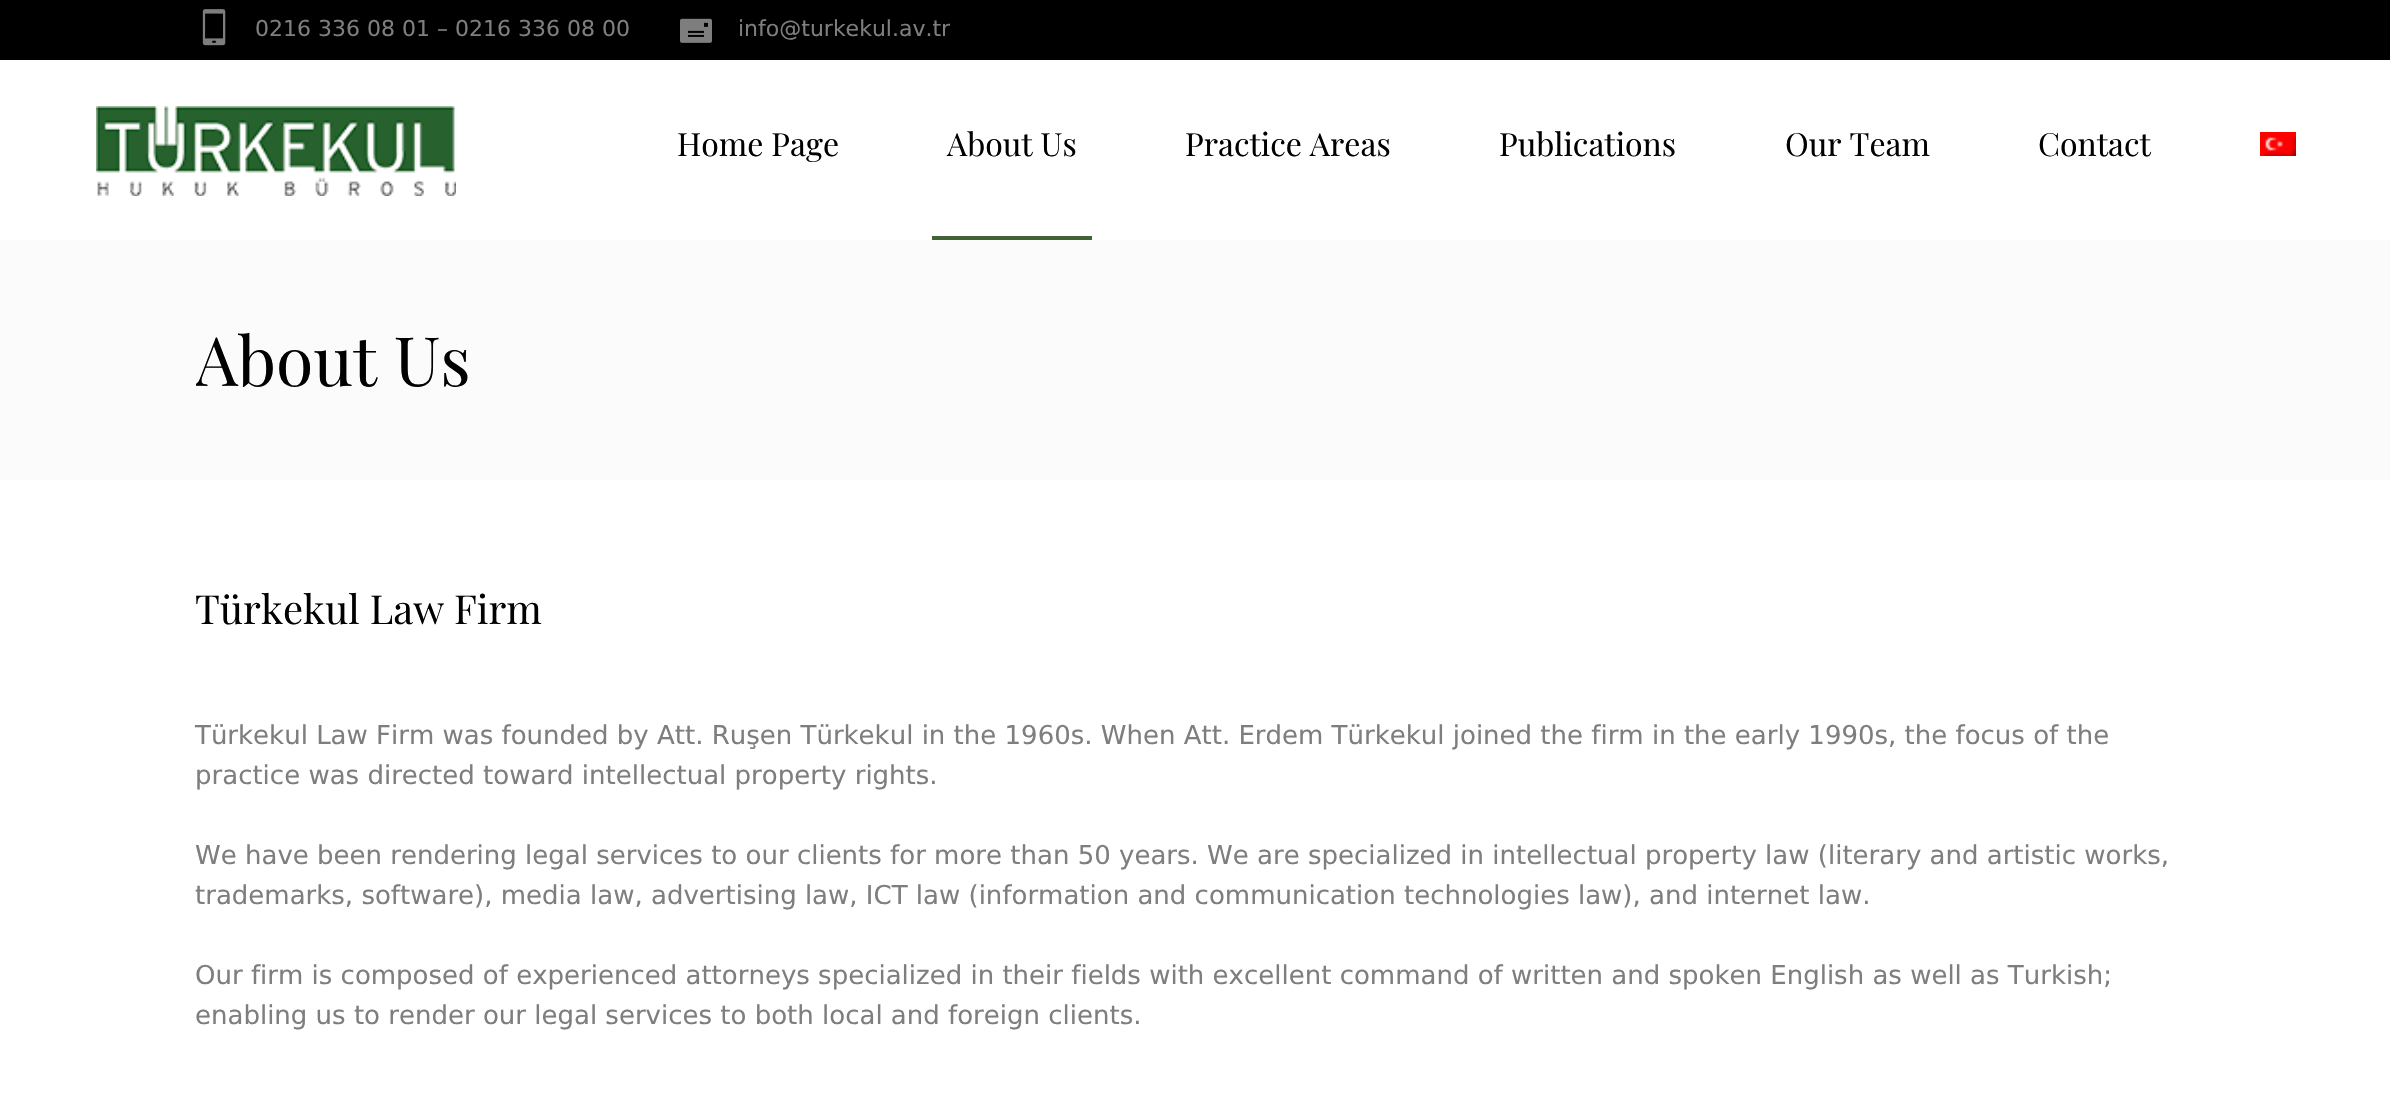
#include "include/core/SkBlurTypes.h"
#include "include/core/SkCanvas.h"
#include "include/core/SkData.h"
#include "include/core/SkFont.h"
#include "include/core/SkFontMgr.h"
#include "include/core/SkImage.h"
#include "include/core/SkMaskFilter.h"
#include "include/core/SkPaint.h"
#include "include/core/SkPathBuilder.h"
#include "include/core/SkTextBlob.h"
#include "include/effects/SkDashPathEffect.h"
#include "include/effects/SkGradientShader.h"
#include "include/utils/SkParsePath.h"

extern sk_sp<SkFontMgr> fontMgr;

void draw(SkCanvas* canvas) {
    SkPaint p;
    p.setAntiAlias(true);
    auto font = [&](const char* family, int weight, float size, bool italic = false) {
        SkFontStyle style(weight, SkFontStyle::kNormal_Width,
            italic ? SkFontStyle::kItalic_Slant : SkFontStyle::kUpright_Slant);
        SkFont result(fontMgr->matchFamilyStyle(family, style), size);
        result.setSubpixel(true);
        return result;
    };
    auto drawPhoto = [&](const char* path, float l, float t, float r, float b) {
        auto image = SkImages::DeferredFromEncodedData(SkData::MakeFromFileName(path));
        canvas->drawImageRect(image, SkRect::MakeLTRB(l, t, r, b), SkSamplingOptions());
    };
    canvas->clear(0xFFFFFFFF);
    p.setColor(0xFF000000);
    canvas->drawRect(SkRect::MakeLTRB(0, 0, 2390, 60), p);
    drawPhoto("media/1.png", 202, 9, 226, 46);
    auto font1 = font("DejaVu Sans", 400, 22);
    p.setColor(0xFF7E7E7E);
    canvas->drawString("0216 336 08 01 – 0216 336 08 00", 255, 36, font1, p);
    drawPhoto("media/2.png", 680, 18, 712, 43);
    canvas->drawString("info@turkekul.av.tr", 738, 36, font1, p);
    drawPhoto("media/3.png", 96, 106, 456, 196);
    auto font2 = font("Playfair Display", 400, 32);
    p.setColor(0xFF000000);
    canvas->drawString("Home Page", 677, 156, font2, p);
    canvas->drawString("About Us", 947, 156, font2, p);
    p.setColor(0xFF416235);
    canvas->drawRect(SkRect::MakeLTRB(932, 236, 1092, 240), p);
    p.setColor(0xFF000000);
    {
        const struct { const char* s; float x, y; } items[] = {
            {"Practice Areas", 1185, 156},
            {"Publications", 1499, 156},
            {"Our Team", 1785, 156},
            {"Contact", 2038, 156},
        };
        for (auto [s, x, y] : items) {
            canvas->drawString(s, x, y, font2, p);
        }
    }
    drawPhoto("media/4.png", 2260, 132, 2296, 156);
    p.setColor(0xFFFBFBFB);
    canvas->drawRect(SkRect::MakeLTRB(0, 240, 2390, 480), p);
    canvas->save();
    canvas->clipRect(SkRect::MakeLTRB(196, 240, 2196, 480));
    auto font3 = font("Playfair Display", 400, 68);
    p.setColor(0xFF000000);
    canvas->drawString("About Us", 195, 386, font3, p);
    canvas->restore();
    auto font4 = font("Playfair Display", 400, 40);
    canvas->drawString("Türkekul Law Firm", 195, 624, font4, p);
    auto font5 = font("DejaVu Sans", 400, 26);
    p.setColor(0xFF7E7E7E);
    {
        const struct { const char* s; float x, y; } items[] = {
            {"Türkekul Law Firm was founded by Att. Ruşen Türkekul in the 1960s. When Att. Erdem Türkekul joined the firm in the early 1990s, the focus of the", 195, 744},
            {"practice was directed toward intellectual property rights.", 195, 784},
            {"We have been rendering legal services to our clients for more than 50 years. We are specialized in intellectual property law (literary and artistic works,", 195, 864},
            {"trademarks, software), media law, advertising law, ICT law (information and communication technologies law), and internet law.", 195, 904},
            {"Our firm is composed of experienced attorneys specialized in their fields with excellent command of written and spoken English as well as Turkish;", 195, 984},
            {"enabling us to render our legal services to both local and foreign clients.", 195, 1024},
        };
        for (auto [s, x, y] : items) {
            canvas->drawString(s, x, y, font5, p);
        }
    }
}
